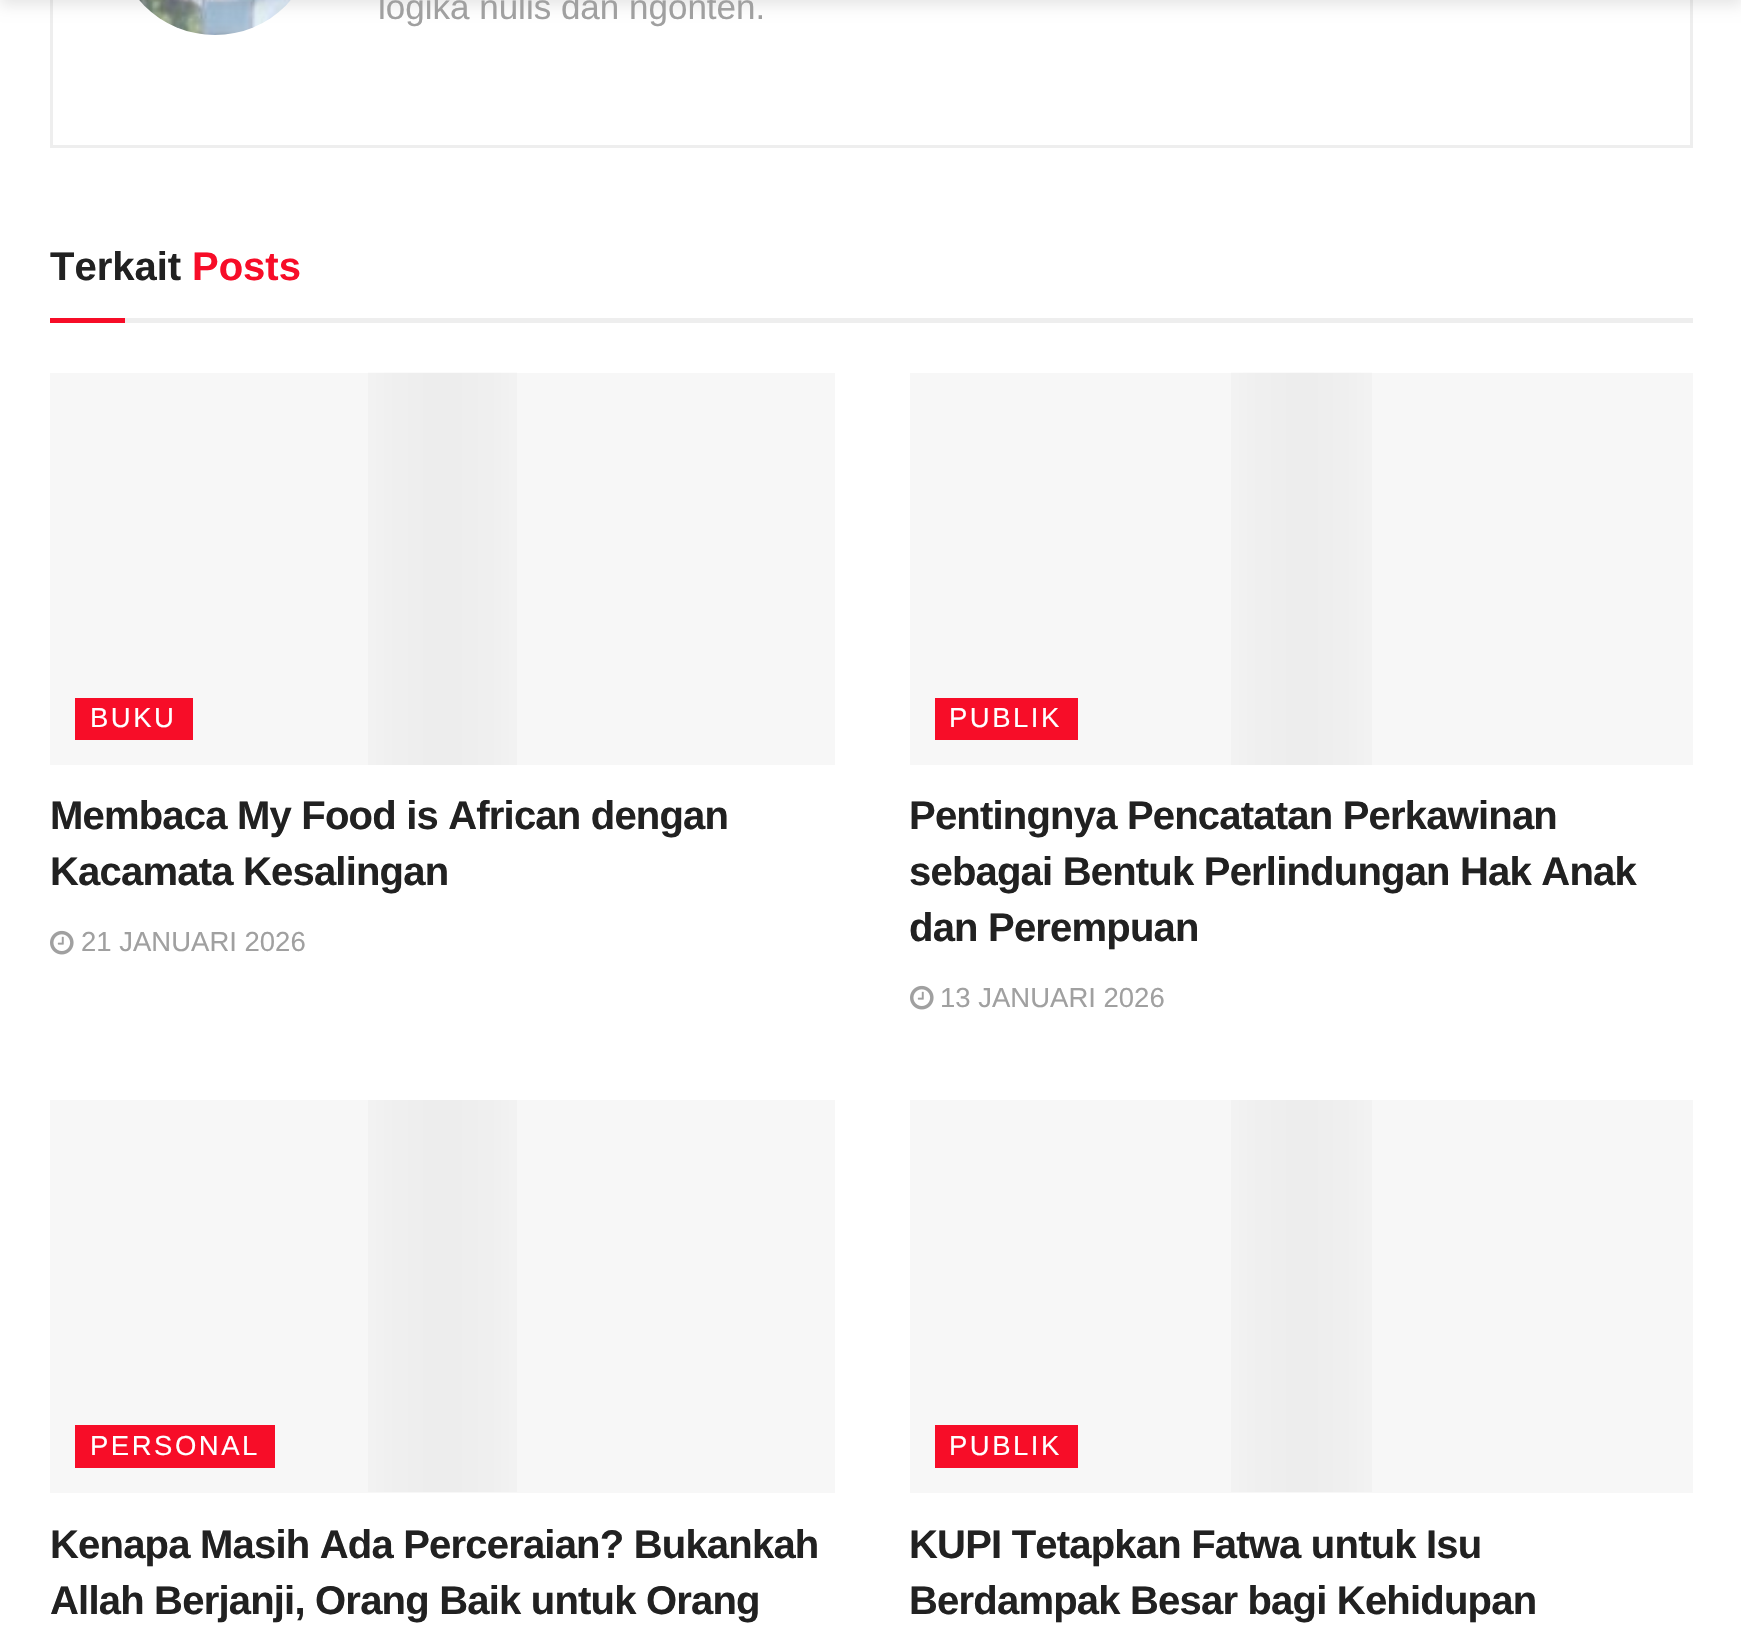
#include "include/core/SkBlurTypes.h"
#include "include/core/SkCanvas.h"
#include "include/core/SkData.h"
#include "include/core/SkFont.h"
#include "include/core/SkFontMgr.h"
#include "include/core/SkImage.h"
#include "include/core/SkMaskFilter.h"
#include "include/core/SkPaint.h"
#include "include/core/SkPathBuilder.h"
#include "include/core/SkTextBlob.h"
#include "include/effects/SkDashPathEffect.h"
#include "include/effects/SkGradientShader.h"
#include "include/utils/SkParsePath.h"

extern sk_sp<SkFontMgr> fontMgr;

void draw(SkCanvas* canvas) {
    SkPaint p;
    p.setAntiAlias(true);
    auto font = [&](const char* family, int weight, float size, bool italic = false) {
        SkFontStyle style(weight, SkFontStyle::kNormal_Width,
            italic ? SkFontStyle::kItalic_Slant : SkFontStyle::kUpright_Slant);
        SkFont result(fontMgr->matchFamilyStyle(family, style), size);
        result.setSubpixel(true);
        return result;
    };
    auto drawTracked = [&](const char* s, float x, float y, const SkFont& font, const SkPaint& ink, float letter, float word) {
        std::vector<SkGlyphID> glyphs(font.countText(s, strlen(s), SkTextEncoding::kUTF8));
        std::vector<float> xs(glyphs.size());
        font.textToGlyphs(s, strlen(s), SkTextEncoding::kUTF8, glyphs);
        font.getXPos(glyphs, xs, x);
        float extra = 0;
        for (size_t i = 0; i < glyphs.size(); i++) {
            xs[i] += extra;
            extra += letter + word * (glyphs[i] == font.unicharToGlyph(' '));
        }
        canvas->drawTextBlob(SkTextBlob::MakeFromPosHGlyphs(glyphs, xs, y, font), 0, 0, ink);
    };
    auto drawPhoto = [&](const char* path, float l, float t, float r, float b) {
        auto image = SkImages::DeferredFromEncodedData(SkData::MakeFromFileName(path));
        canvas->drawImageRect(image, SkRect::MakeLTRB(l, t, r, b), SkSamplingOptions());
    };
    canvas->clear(0xFFFFFFFF);
    p.setStyle(SkPaint::kStroke_Style);
    p.setStrokeWidth(3);
    p.setColor(0xFFEEEEEE);
    canvas->drawRect(SkRect::MakeLTRB(51.5f, -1.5f, 1691.5f, 146.5f), p);
    drawPhoto("media/1.png", 139, 0, 291, 35);
    p.setStyle(SkPaint::kFill_Style);
    p.setColor(0x1A000000);
    p.setMaskFilter(SkMaskFilter::MakeBlur(kNormal_SkBlurStyle, 7.5f));
    canvas->drawRect(SkRect::MakeLTRB(0, -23, 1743, 5), p);
    p.setMaskFilter(nullptr);
    auto font1 = font("Liberation Sans", 400, 35);
    p.setColor(0xFFA0A0A0);
    canvas->drawString("logika nulis dan ngonten.", 378, 19, font1, p);
    p.setColor(0xFFEEEEEE);
    canvas->drawRect(SkRect::MakeLTRB(125, 318, 1693, 323), p);
    auto font2 = font("Liberation Sans", 700, 40);
    p.setColor(0xFF212121);
    canvas->drawString("Terkait", 50, 280, font2, p);
    p.setColor(0xFFF70D28);
    canvas->drawString("Posts", 192, 280, font2, p);
    canvas->drawRect(SkRect::MakeLTRB(50, 318, 125, 323), p);
    p.setColor(0xFFF7F7F7);
    canvas->drawRect(SkRect::MakeLTRB(50, 373, 835, 765), p);
    drawPhoto("media/2.png", 368, 372, 517, 765);
    p.setColor(0xFFF70D28);
    canvas->drawRect(SkRect::MakeLTRB(75, 698, 193, 740), p);
    auto font3 = font("Liberation Sans", 400, 27.5f);
    p.setColor(0xFFFFFFFF);
    drawTracked("BUKU", 90, 727, font3, p, 2.5f, 0);
    p.setColor(0xFF212121);
    drawTracked("Membaca My Food is African dengan", 50, 829, font2, p, -0.8f, 0);
    drawTracked("Kacamata Kesalingan", 50, 885, font2, p, -0.8f, 0);
    drawPhoto("media/3.png", 50, 930, 74, 955);
    p.setColor(0xFFA0A0A0);
    canvas->drawString("21 JANUARI 2026", 81, 951, font3, p);
    p.setColor(0xFFF7F7F7);
    canvas->drawRect(SkRect::MakeLTRB(910, 373, 1693, 765), p);
    drawPhoto("media/4.png", 1231, 372, 1372, 765);
    p.setColor(0xFFF70D28);
    canvas->drawRect(SkRect::MakeLTRB(935, 698, 1078, 740), p);
    p.setColor(0xFFFFFFFF);
    drawTracked("PUBLIK", 949, 727, font3, p, 2.5f, 0);
    p.setColor(0xFF212121);
    {
        const struct { const char* s; float x, y; } items[] = {
            {"Pentingnya Pencatatan Perkawinan", 909, 829},
            {"sebagai Bentuk Perlindungan Hak Anak", 909, 885},
            {"dan Perempuan", 909, 941},
        };
        for (auto [s, x, y] : items) {
            drawTracked(s, x, y, font2, p, -0.8f, 0);
        }
    }
    drawPhoto("media/3.png", 910, 985, 934, 1010);
    p.setColor(0xFFA0A0A0);
    canvas->drawString("13 JANUARI 2026", 940, 1007, font3, p);
    p.setColor(0xFFF7F7F7);
    canvas->drawRect(SkRect::MakeLTRB(50, 1100, 835, 1493), p);
    drawPhoto("media/5.png", 368, 1100, 517, 1492);
    p.setColor(0xFFF70D28);
    canvas->drawRect(SkRect::MakeLTRB(75, 1425, 275, 1468), p);
    p.setColor(0xFFFFFFFF);
    drawTracked("PERSONAL", 90, 1455, font3, p, 2.5f, 0);
    p.setColor(0xFF212121);
    drawTracked("Kenapa Masih Ada Perceraian? Bukankah", 50, 1558, font2, p, -0.8f, 0);
    drawTracked("Allah Berjanji, Orang Baik untuk Orang", 50, 1614, font2, p, -0.8f, 0);
    p.setColor(0xFFF7F7F7);
    canvas->drawRect(SkRect::MakeLTRB(910, 1100, 1693, 1493), p);
    drawPhoto("media/6.png", 1231, 1100, 1372, 1492);
    p.setColor(0xFFF70D28);
    canvas->drawRect(SkRect::MakeLTRB(935, 1425, 1078, 1468), p);
    p.setColor(0xFFFFFFFF);
    drawTracked("PUBLIK", 949, 1455, font3, p, 2.5f, 0);
    p.setColor(0xFF212121);
    drawTracked("KUPI Tetapkan Fatwa untuk Isu", 909, 1558, font2, p, -0.8f, 0);
    drawTracked("Berdampak Besar bagi Kehidupan", 909, 1614, font2, p, -0.8f, 0);
}
